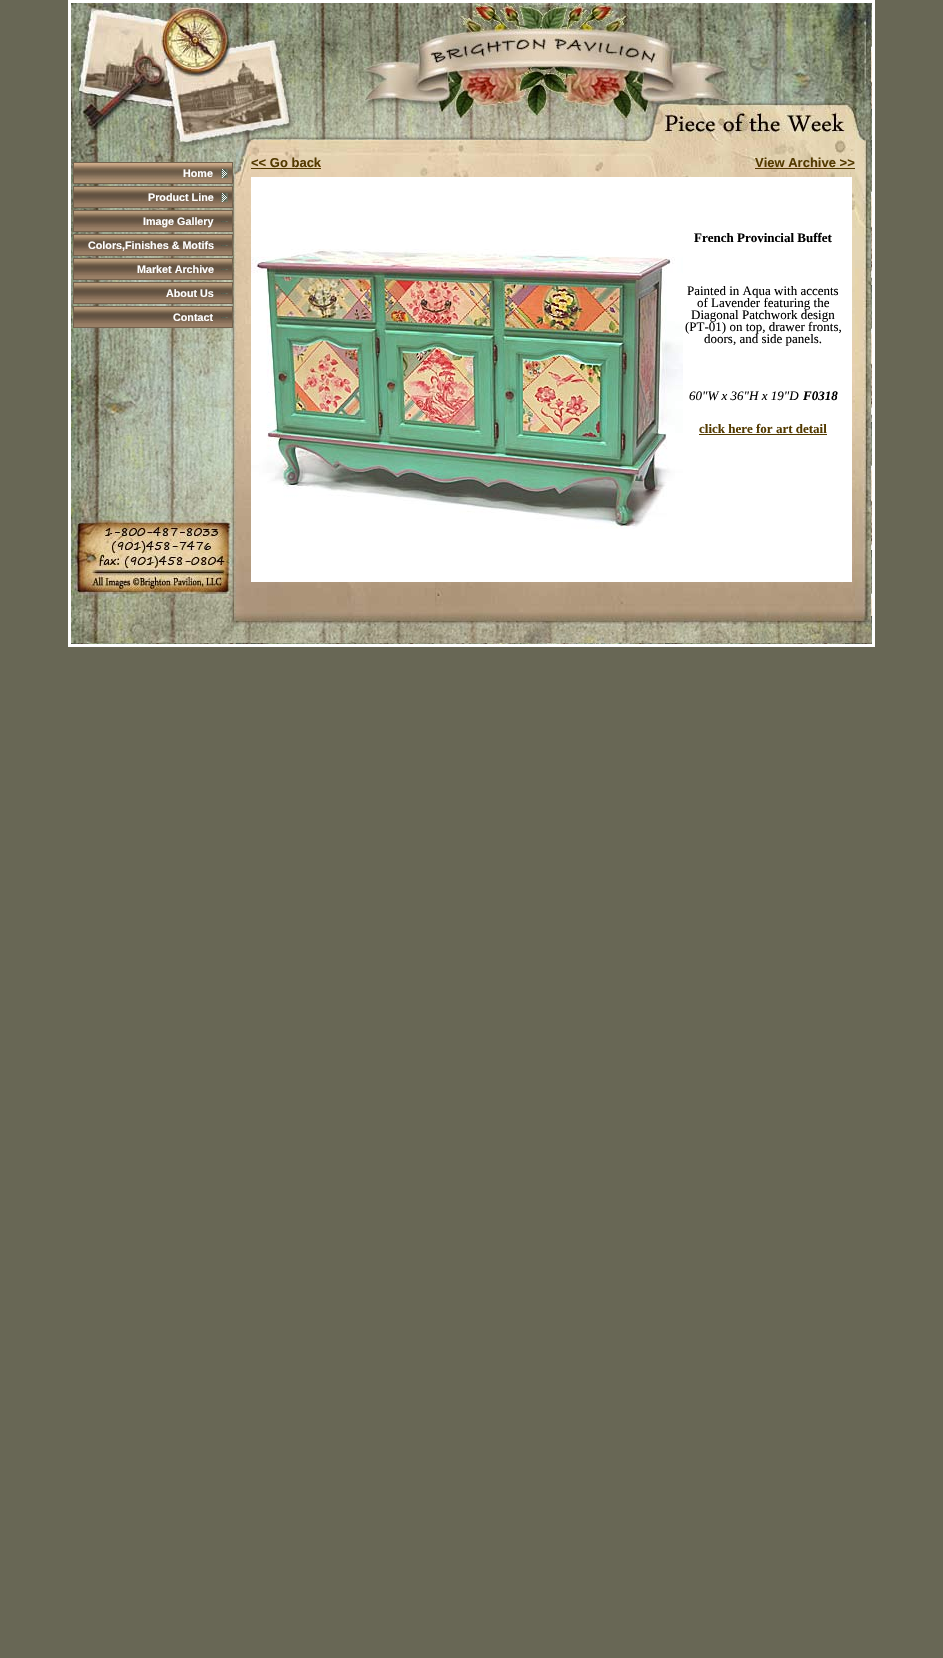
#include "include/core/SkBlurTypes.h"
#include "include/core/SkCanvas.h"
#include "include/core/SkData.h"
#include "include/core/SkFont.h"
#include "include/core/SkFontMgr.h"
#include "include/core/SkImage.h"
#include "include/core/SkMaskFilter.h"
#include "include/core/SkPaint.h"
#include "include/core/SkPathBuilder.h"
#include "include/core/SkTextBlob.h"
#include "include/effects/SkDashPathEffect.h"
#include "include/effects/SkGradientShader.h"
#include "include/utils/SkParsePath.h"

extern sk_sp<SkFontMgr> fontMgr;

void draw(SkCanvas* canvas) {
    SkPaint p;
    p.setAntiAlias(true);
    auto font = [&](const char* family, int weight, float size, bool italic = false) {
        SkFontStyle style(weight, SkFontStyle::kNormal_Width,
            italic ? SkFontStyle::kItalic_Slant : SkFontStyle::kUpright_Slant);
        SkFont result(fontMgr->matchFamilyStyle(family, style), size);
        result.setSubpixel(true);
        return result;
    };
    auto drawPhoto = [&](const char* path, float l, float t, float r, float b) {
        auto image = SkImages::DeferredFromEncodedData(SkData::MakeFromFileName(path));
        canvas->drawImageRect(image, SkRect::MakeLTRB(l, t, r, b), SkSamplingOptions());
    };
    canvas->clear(0xFF686755);
    p.setStyle(SkPaint::kStroke_Style);
    p.setStrokeWidth(2);
    p.setColor(0xFFFFFFFF);
    canvas->drawRect(SkRect::MakeLTRB(69, 1, 874, 646), p);
    p.setStrokeWidth(1);
    canvas->drawRect(SkRect::MakeLTRB(70.5f, 2.5f, 872.5f, 644.5f), p);
    drawPhoto("media/1.png", 71, 3, 236, 140);
    drawPhoto("media/2.png", 236, 3, 665, 140);
    drawPhoto("media/3.png", 665, 3, 845, 109);
    drawPhoto("media/4.png", 845, 3, 871, 140);
    drawPhoto("media/5.png", 871, 3, 872, 109);
    drawPhoto("media/6.png", 665, 109, 845, 140);
    drawPhoto("media/7.png", 871, 109, 872, 140);
    drawPhoto("media/8.png", 236, 140, 251, 616);
    drawPhoto("media/9.png", 251, 140, 855, 148);
    drawPhoto("media/10.png", 855, 140, 871, 616);
    drawPhoto("media/11.png", 871, 140, 872, 148);
    drawPhoto("media/12.png", 71, 140, 236, 550);
    p.setColor(0xFF73614D);
    canvas->drawRect(SkRect::MakeLTRB(73.5f, 162.5f, 232.5f, 183.5f), p);
    drawPhoto("media/13.png", 74, 163, 232, 183);
    auto font1 = font("Liberation Sans", 700, 10.75f);
    p.setStyle(SkPaint::kFill_Style);
    p.setColor(0xFFFFFFFF);
    canvas->drawString("Home", 183, 177, font1, p);
    drawPhoto("media/14.png", 221, 169, 228, 178);
    p.setStyle(SkPaint::kStroke_Style);
    p.setColor(0xFF73614D);
    canvas->drawRect(SkRect::MakeLTRB(73.5f, 186.5f, 232.5f, 207.5f), p);
    drawPhoto("media/15.png", 74, 187, 232, 207);
    p.setStyle(SkPaint::kFill_Style);
    p.setColor(0xFFFFFFFF);
    canvas->drawString("Product Line", 148, 201, font1, p);
    drawPhoto("media/14.png", 221, 193, 228, 202);
    p.setStyle(SkPaint::kStroke_Style);
    p.setColor(0xFF73614D);
    canvas->drawRect(SkRect::MakeLTRB(73.5f, 210.5f, 232.5f, 231.5f), p);
    drawPhoto("media/15.png", 74, 211, 232, 231);
    p.setStyle(SkPaint::kFill_Style);
    p.setColor(0xFFFFFFFF);
    canvas->drawString("Image Gallery", 143, 225, font1, p);
    drawPhoto("media/16.png", 221, 221, 228, 222);
    p.setStyle(SkPaint::kStroke_Style);
    p.setColor(0xFF73614D);
    canvas->drawRect(SkRect::MakeLTRB(73.5f, 234.5f, 232.5f, 255.5f), p);
    drawPhoto("media/15.png", 74, 235, 232, 255);
    p.setStyle(SkPaint::kFill_Style);
    p.setColor(0xFFFFFFFF);
    canvas->drawString("Colors,Finishes & Motifs", 88, 249, font1, p);
    drawPhoto("media/16.png", 221, 245, 228, 246);
    p.setStyle(SkPaint::kStroke_Style);
    p.setColor(0xFF73614D);
    canvas->drawRect(SkRect::MakeLTRB(73.5f, 258.5f, 232.5f, 279.5f), p);
    drawPhoto("media/15.png", 74, 259, 232, 279);
    p.setStyle(SkPaint::kFill_Style);
    p.setColor(0xFFFFFFFF);
    canvas->drawString("Market Archive", 137, 273, font1, p);
    drawPhoto("media/16.png", 221, 269, 228, 270);
    p.setStyle(SkPaint::kStroke_Style);
    p.setColor(0xFF73614D);
    canvas->drawRect(SkRect::MakeLTRB(73.5f, 282.5f, 232.5f, 303.5f), p);
    drawPhoto("media/15.png", 74, 283, 232, 303);
    p.setStyle(SkPaint::kFill_Style);
    p.setColor(0xFFFFFFFF);
    canvas->drawString("About Us", 166, 297, font1, p);
    drawPhoto("media/16.png", 221, 293, 228, 294);
    p.setStyle(SkPaint::kStroke_Style);
    p.setColor(0xFF73614D);
    canvas->drawRect(SkRect::MakeLTRB(73.5f, 306.5f, 232.5f, 327.5f), p);
    drawPhoto("media/15.png", 74, 307, 232, 327);
    p.setStyle(SkPaint::kFill_Style);
    p.setColor(0xFFFFFFFF);
    canvas->drawString("Contact", 173, 321, font1, p);
    drawPhoto("media/16.png", 221, 317, 228, 318);
    drawPhoto("media/17.png", 251, 148, 855, 616);
    auto font2 = font("Liberation Sans", 700, 13);
    p.setColor(0xFF533A00);
    canvas->drawString("<< Go back", 251, 167, font2, p);
    canvas->drawRect(SkRect::MakeLTRB(251, 168, 321, 169), p);
    canvas->drawString("View Archive >>", 755, 167, font2, p);
    canvas->drawRect(SkRect::MakeLTRB(755, 168, 855, 169), p);
    p.setColor(0xFFFFFFFF);
    canvas->drawRect(SkRect::MakeLTRB(251, 177, 852, 582), p);
    drawPhoto("media/18.png", 251, 249, 683, 529);
    auto font3 = font("Liberation Serif", 700, 13);
    p.setColor(0xFF000000);
    canvas->drawString("French Provincial Buffet", 694, 242, font3, p);
    auto font4 = font("Liberation Serif", 400, 13);
    {
        const struct { const char* s; float x, y; } items[] = {
            {"Painted in Aqua with accents", 687, 295},
            {"of Lavender featuring the", 697, 307},
            {"Diagonal Patchwork design", 691, 319},
            {"(PT-01) on top, drawer fronts,", 685, 331},
            {"doors, and side panels.", 704, 343},
        };
        for (auto [s, x, y] : items) {
            canvas->drawString(s, x, y, font4, p);
        }
    }
    auto font5 = font("Liberation Serif", 400, 13, true);
    canvas->drawString("60\"W x 36\"H x 19\"D", 689, 400, font5, p);
    auto font6 = font("Liberation Serif", 700, 13, true);
    canvas->drawString("F0318", 803, 400, font6, p);
    p.setColor(0xFF533A00);
    canvas->drawString("click here for art detail", 699, 433, font3, p);
    canvas->drawRect(SkRect::MakeLTRB(699, 434, 827, 435), p);
    drawPhoto("media/19.png", 871, 148, 872, 550);
    drawPhoto("media/20.png", 71, 550, 236, 643);
    drawPhoto("media/21.png", 871, 550, 872, 616);
    drawPhoto("media/22.png", 236, 616, 871, 643);
    drawPhoto("media/23.png", 871, 616, 872, 643);
    drawPhoto("media/24.png", 71, 643, 236, 644);
    drawPhoto("media/25.png", 236, 643, 251, 644);
    drawPhoto("media/26.png", 251, 643, 665, 644);
    drawPhoto("media/27.png", 665, 643, 845, 644);
    drawPhoto("media/28.png", 845, 643, 855, 644);
    drawPhoto("media/29.png", 855, 643, 871, 644);
}
